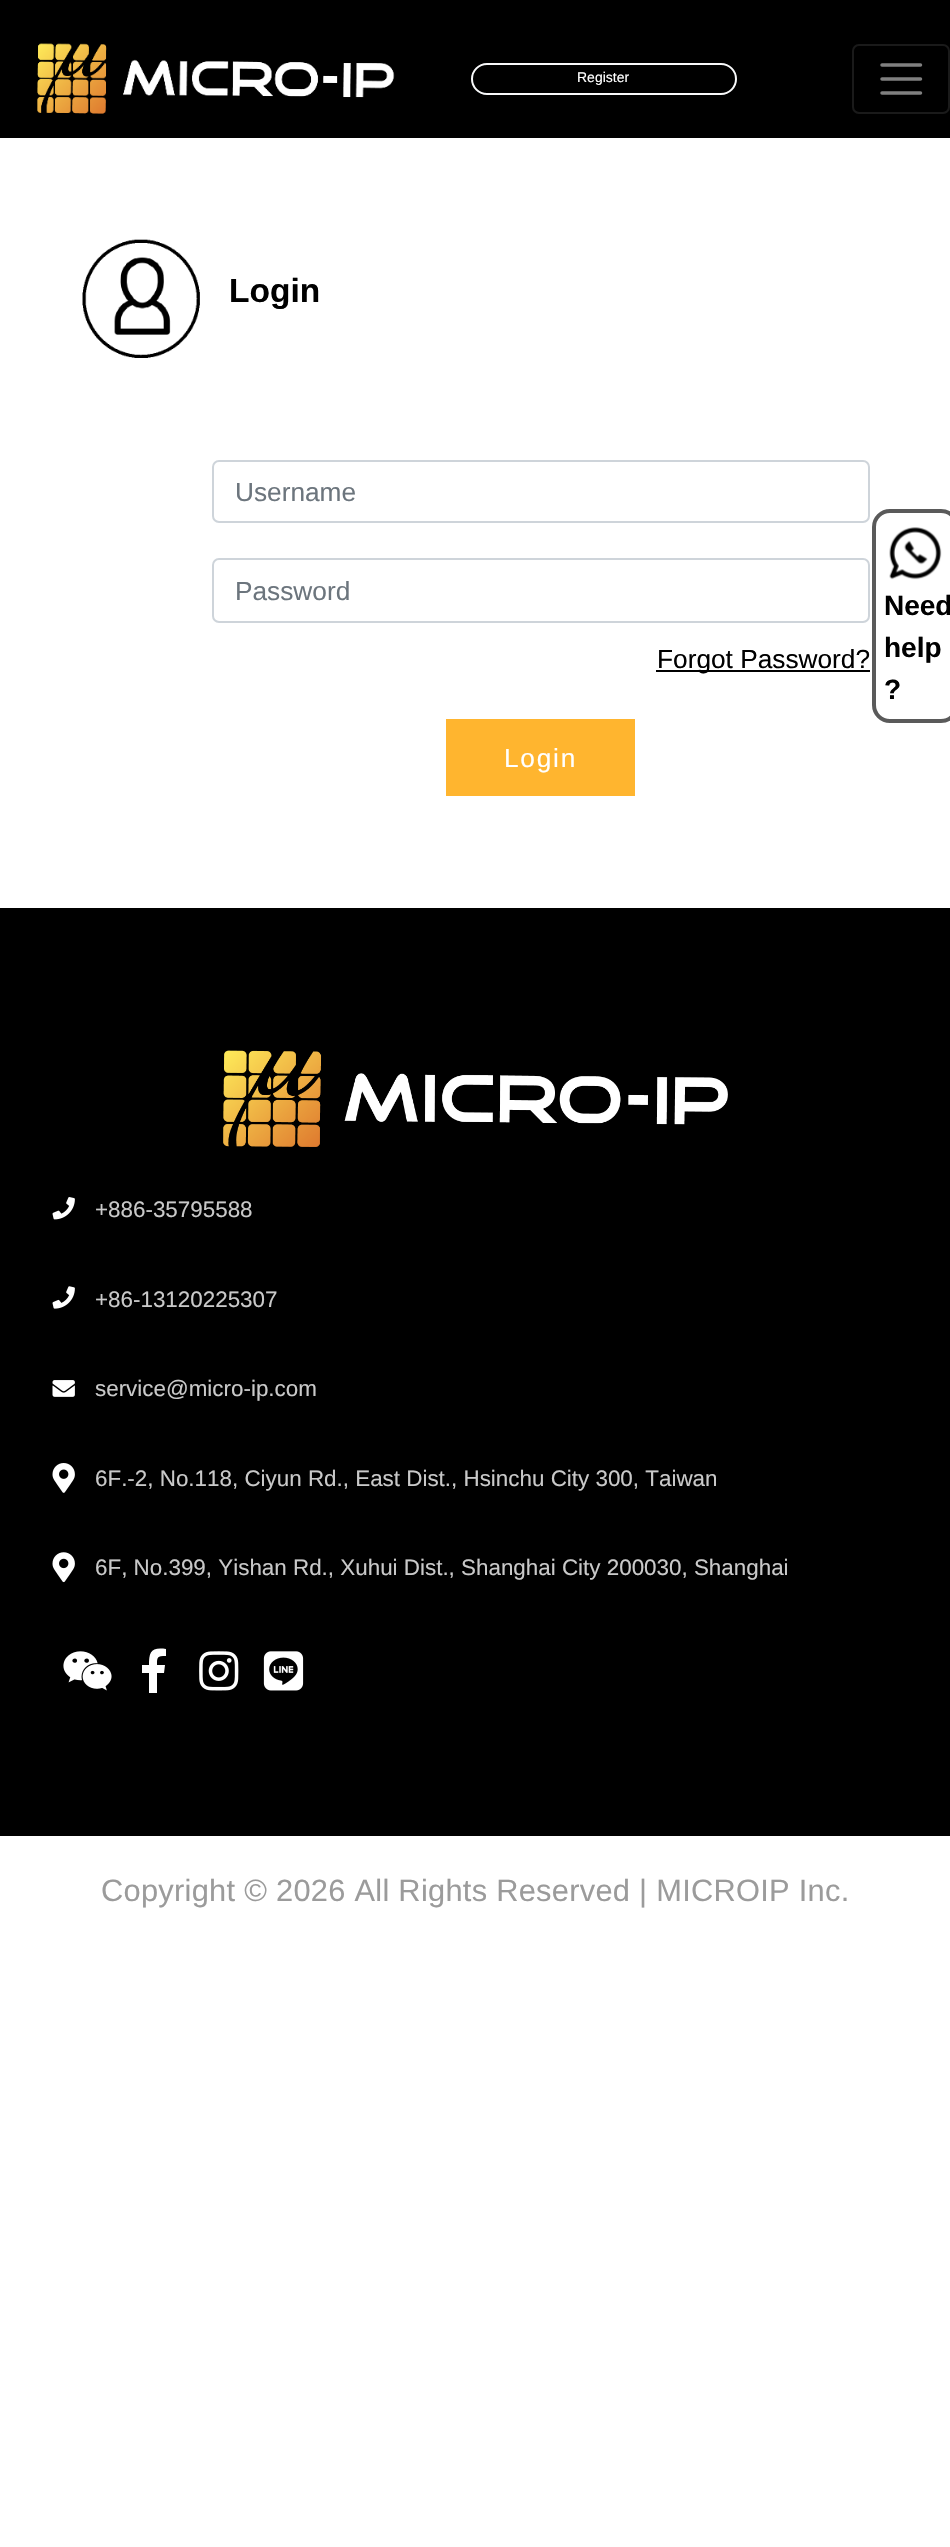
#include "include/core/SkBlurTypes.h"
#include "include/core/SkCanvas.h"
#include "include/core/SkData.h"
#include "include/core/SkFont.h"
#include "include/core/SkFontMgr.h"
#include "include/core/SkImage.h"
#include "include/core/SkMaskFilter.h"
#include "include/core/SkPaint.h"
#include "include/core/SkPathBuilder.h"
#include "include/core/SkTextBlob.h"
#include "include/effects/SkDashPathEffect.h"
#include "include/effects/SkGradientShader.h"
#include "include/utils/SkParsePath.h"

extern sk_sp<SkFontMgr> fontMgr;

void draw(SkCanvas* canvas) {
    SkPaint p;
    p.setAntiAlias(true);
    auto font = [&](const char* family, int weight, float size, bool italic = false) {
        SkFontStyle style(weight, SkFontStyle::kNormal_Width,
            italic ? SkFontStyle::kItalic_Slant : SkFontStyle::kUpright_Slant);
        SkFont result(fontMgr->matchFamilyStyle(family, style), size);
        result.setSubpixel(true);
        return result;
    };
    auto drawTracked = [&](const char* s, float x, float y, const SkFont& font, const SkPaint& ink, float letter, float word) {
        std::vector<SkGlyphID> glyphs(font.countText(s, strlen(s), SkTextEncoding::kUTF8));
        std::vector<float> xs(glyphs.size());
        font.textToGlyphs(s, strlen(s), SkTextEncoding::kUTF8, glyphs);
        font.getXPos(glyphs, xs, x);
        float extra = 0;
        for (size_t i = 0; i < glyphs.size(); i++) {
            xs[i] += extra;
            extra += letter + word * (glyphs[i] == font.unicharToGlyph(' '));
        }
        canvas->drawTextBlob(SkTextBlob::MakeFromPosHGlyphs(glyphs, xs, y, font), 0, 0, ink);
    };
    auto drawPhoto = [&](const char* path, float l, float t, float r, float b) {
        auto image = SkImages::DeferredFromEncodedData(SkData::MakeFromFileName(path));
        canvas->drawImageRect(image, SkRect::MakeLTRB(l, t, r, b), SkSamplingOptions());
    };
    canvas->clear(0xFFFFFFFF);
    p.setColor(0xFF000000);
    canvas->drawRect(SkRect::MakeLTRB(0, 0, 950, 138), p);
    drawPhoto("media/1.png", 37, 43, 395, 114);
    p.setStyle(SkPaint::kStroke_Style);
    p.setStrokeWidth(2);
    p.setColor(0xFFF8F9FA);
    canvas->drawRoundRect(SkRect::MakeLTRB(472, 64, 736, 94), 15, 15, p);
    auto font1 = font("Liberation Sans", 400, 14);
    p.setStyle(SkPaint::kFill_Style);
    p.setColor(0xFFFFFFFF);
    canvas->drawString("Register", 577, 82, font1, p);
    p.setStyle(SkPaint::kStroke_Style);
    p.setColor(0xFF1A1A1A);
    canvas->drawRoundRect(SkRect::MakeLTRB(853, 45, 949, 113), 6, 6, p);
    p.setStrokeWidth(3.5f);
    p.setStrokeCap(SkPaint::kRound_Cap);
    p.setColor(0xFF808080);
    canvas->drawPath(SkPathBuilder().moveTo(882, 65).lineTo(920.5f, 65).moveTo(882, 79).lineTo(920.5f, 79).moveTo(882, 93).lineTo(920.5f, 93).detach(), p);
    drawPhoto("media/2.png", 82, 239, 200, 358);
    auto font2 = font("Liberation Sans", 700, 33.5f);
    p.setStyle(SkPaint::kFill_Style);
    p.setColor(0xFF000000);
    canvas->drawString("Login", 229, 302, font2, p);
    p.setStyle(SkPaint::kStroke_Style);
    p.setStrokeWidth(2);
    p.setStrokeCap(SkPaint::kButt_Cap);
    p.setColor(0xFFCED4DA);
    canvas->drawRoundRect(SkRect::MakeLTRB(213, 461, 869, 522), 6, 6, p);
    auto font3 = font("Liberation Sans", 400, 26.25f);
    p.setStyle(SkPaint::kFill_Style);
    p.setColor(0xFF6C757D);
    canvas->drawString("Username", 235, 501, font3, p);
    p.setStyle(SkPaint::kStroke_Style);
    p.setColor(0xFFCED4DA);
    canvas->drawRoundRect(SkRect::MakeLTRB(213, 559, 869, 622), 6, 6, p);
    p.setStyle(SkPaint::kFill_Style);
    p.setColor(0xFF6C757D);
    canvas->drawString("Password", 235, 600, font3, p);
    p.setColor(0xFF000000);
    canvas->drawRect(SkRect::MakeLTRB(656, 670, 870, 672), p);
    canvas->drawString("Forgot Password?", 657, 668, font3, p);
    p.setColor(0xFFFFB52F);
    canvas->drawRect(SkRect::MakeLTRB(446, 719, 635, 796), p);
    p.setColor(0xFFFFFFFF);
    drawTracked("Login", 504, 767, font3, p, 1.75f, 0);
    p.setStyle(SkPaint::kStroke_Style);
    p.setStrokeWidth(4);
    p.setColor(0xFF5A5A5A);
    canvas->drawRoundRect(SkRect::MakeLTRB(874, 511, 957, 721), 16, 16, p);
    drawPhoto("media/3.png", 889, 527, 942, 580);
    auto font4 = font("Liberation Sans", 700, 28);
    p.setStyle(SkPaint::kFill_Style);
    p.setColor(0xFF000000);
    {
        const struct { const char* s; float x, y; } items[] = {
            {"Need", 884, 615},
            {"help", 884, 657},
            {"?", 884, 699},
        };
        for (auto [s, x, y] : items) {
            canvas->drawString(s, x, y, font4, p);
        }
    }
    canvas->drawRect(SkRect::MakeLTRB(0, 908, 950, 1836), p);
    drawPhoto("media/4.png", 223, 1050, 728, 1147);
    drawPhoto("media/5.png", 52, 1197, 75, 1220);
    auto font5 = font("Liberation Sans", 400, 22.4f);
    p.setColor(0xFFC9C9C9);
    canvas->drawString("+886-35795588", 95, 1217, font5, p);
    drawPhoto("media/6.png", 52, 1286, 75, 1309);
    canvas->drawString("+86-13120225307", 95, 1307, font5, p);
    drawPhoto("media/7.png", 52, 1380, 75, 1397);
    canvas->drawString("service@micro-ip.com", 95, 1396, font5, p);
    drawPhoto("media/8.png", 52, 1463, 75, 1493);
    canvas->drawString("6F.-2, No.118, Ciyun Rd., East Dist., Hsinchu City 300, Taiwan", 95, 1486, font5, p);
    drawPhoto("media/9.png", 52, 1552, 75, 1583);
    canvas->drawString("6F, No.399, Yishan Rd., Xuhui Dist., Shanghai City 200030, Shanghai", 95, 1575, font5, p);
    drawPhoto("media/10.png", 63, 1651, 112, 1691);
    p.setColor(0xFFFFFFFF);
    canvas->drawPath(SkPathBuilder().moveTo(149, 1693).lineTo(149, 1673).lineTo(142, 1673).lineTo(142, 1665).lineTo(149, 1665).cubicTo(149, 1652, 151, 1647, 166, 1649).lineTo(166, 1656).cubicTo(157, 1656, 157, 1657, 157, 1665).lineTo(165, 1665).lineTo(164, 1673).lineTo(157, 1673).lineTo(157, 1693).detach(), p);
    drawPhoto("media/11.png", 199, 1651, 239, 1691);
    drawPhoto("media/12.png", 263, 1651, 304, 1691);
    auto font6 = font("Liberation Sans", 400, 30.8f);
    p.setColor(0xFF9B9B9B);
    drawTracked("Copyright © 2026 All Rights Reserved | MICROIP Inc.", 101, 1901, font6, p, 0.28f, 0);
}
